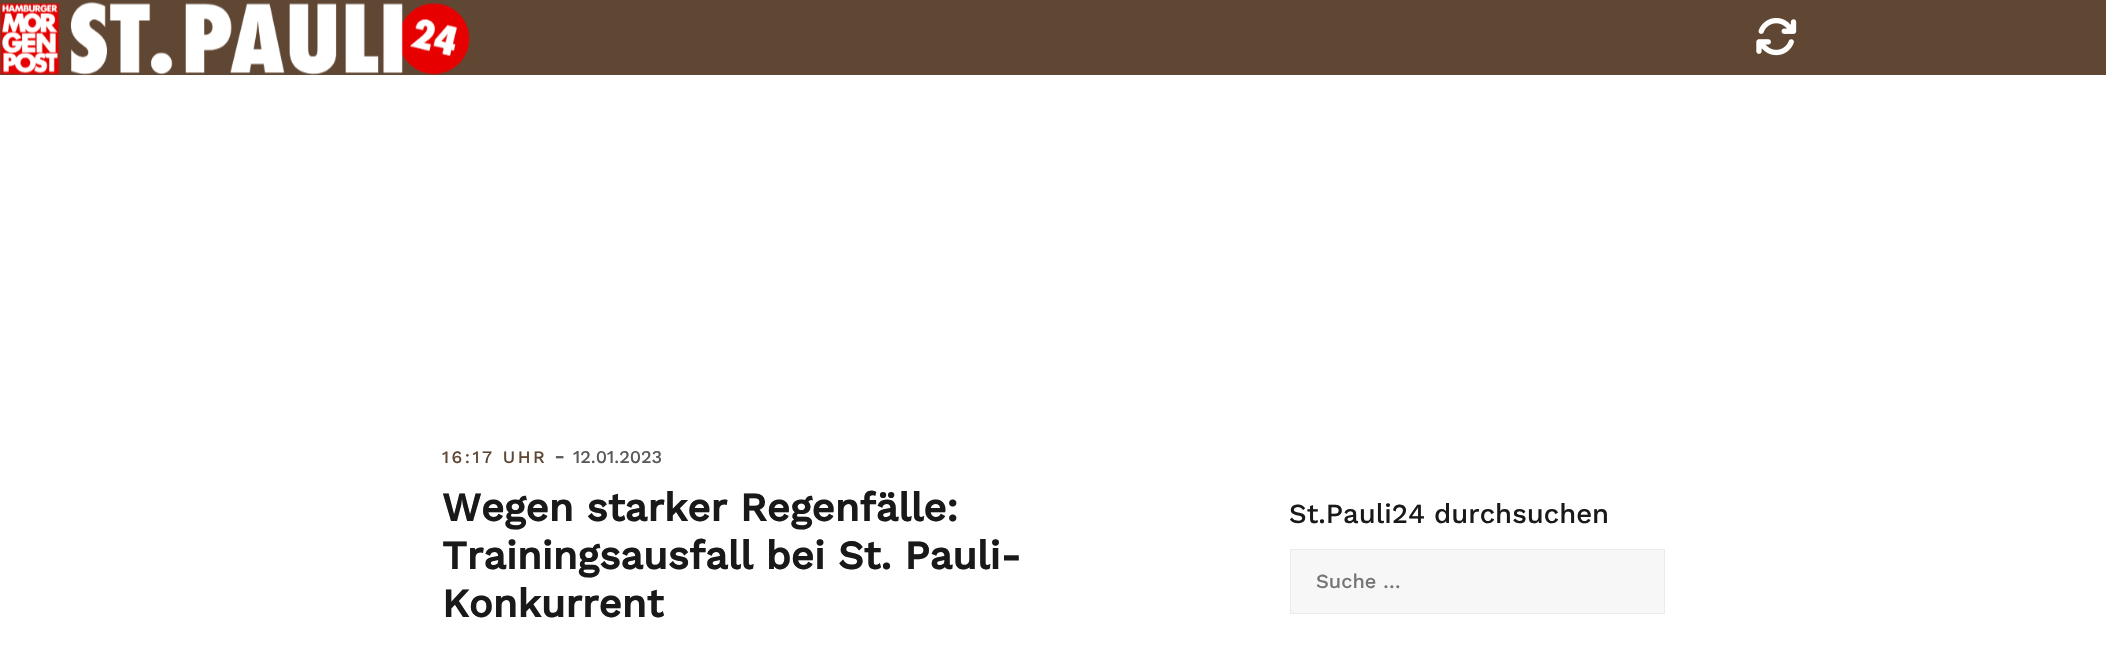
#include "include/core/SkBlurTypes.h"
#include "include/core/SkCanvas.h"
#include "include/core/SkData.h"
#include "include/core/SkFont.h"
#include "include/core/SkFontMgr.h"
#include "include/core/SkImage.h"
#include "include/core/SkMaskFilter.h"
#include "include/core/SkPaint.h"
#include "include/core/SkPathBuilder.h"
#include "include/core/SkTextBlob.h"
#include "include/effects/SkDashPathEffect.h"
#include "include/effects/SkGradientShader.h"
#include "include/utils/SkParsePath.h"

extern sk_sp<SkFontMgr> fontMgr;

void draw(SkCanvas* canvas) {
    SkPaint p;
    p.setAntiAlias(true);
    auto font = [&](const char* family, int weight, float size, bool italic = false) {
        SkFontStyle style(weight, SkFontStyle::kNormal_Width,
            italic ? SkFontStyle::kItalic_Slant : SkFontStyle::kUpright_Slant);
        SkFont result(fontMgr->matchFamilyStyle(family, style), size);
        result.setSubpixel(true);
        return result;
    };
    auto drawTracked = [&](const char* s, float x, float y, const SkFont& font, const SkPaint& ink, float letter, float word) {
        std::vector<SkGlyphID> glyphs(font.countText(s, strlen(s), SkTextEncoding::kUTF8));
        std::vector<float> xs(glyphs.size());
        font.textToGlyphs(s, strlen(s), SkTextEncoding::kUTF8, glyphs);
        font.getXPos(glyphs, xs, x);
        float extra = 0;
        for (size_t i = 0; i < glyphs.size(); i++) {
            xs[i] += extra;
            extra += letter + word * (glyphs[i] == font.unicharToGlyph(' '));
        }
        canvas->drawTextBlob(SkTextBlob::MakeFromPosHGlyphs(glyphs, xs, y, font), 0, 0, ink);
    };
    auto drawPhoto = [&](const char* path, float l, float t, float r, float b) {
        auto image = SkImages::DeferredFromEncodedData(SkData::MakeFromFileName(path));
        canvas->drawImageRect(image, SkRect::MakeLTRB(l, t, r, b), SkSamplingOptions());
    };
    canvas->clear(0xFFFFFFFF);
    p.setColor(0xFF604734);
    canvas->drawRect(SkRect::MakeLTRB(0, 0, 2106, 75), p);
    drawPhoto("media/1.png", 0, 2, 470, 75);
    drawPhoto("media/2.png", 1756, 18, 1797, 56);
    auto font1 = font("Work Sans", 500, 17.5f);
    drawTracked("16:17 UHR", 442, 463, font1, p, 2.5f, 0);
    auto font2 = font("Work Sans", 500, 22);
    p.setColor(0xFF595959);
    canvas->drawString("-", 554, 463, font2, p);
    auto font3 = font("Work Sans", 500, 18);
    canvas->drawString("12.01.2023", 573, 463, font3, p);
    auto font4 = font("Work Sans", 700, 40);
    p.setColor(0xFF191919);
    {
        const struct { const char* s; float x, y; } items[] = {
            {"Wegen starker Regenfälle:", 442, 521},
            {"Trainingsausfall bei St. Pauli-", 442, 569},
            {"Konkurrent", 442, 617},
        };
        for (auto [s, x, y] : items) {
            canvas->drawString(s, x, y, font4, p);
        }
    }
    auto font5 = font("Work Sans", 500, 27.5f);
    canvas->drawString("St.Pauli24 durchsuchen", 1289, 523, font5, p);
    p.setColor(0xFFF7F7F7);
    canvas->drawRect(SkRect::MakeLTRB(1290.5f, 549.5f, 1664.5f, 613.5f), p);
    p.setStyle(SkPaint::kStroke_Style);
    p.setStrokeWidth(1);
    p.setColor(0xFFEBEBEB);
    canvas->drawRect(SkRect::MakeLTRB(1290.5f, 549.5f, 1664.5f, 613.5f), p);
    auto font6 = font("Work Sans", 500, 20);
    p.setStyle(SkPaint::kFill_Style);
    p.setColor(0xFF757575);
    canvas->drawString("Suche …", 1316, 588, font6, p);
}
